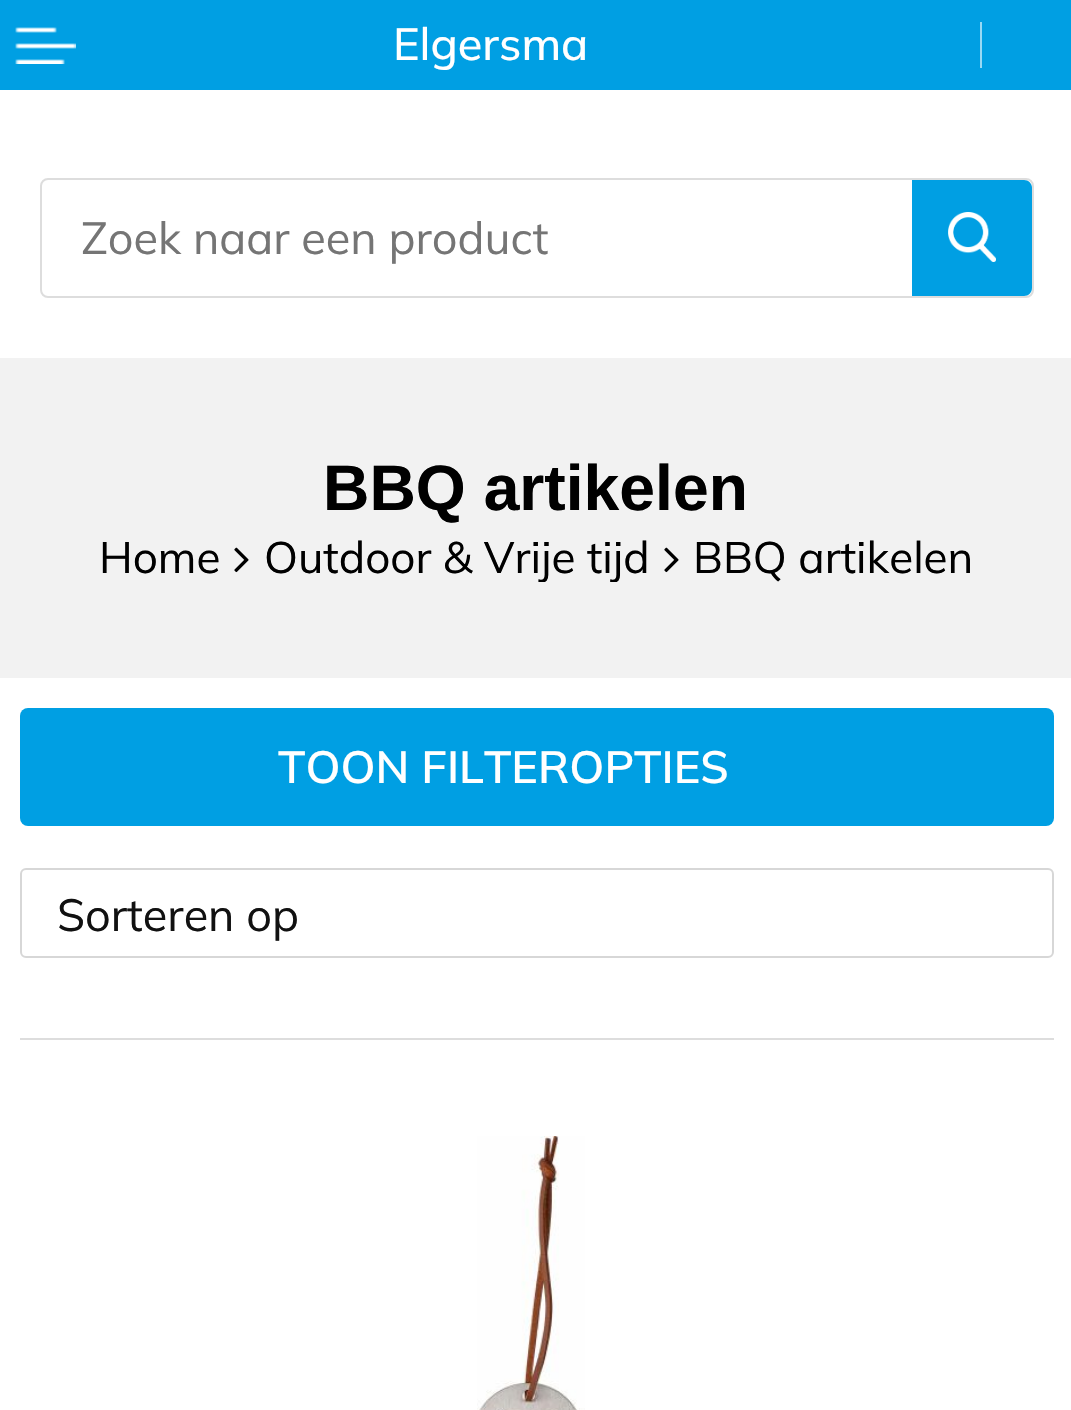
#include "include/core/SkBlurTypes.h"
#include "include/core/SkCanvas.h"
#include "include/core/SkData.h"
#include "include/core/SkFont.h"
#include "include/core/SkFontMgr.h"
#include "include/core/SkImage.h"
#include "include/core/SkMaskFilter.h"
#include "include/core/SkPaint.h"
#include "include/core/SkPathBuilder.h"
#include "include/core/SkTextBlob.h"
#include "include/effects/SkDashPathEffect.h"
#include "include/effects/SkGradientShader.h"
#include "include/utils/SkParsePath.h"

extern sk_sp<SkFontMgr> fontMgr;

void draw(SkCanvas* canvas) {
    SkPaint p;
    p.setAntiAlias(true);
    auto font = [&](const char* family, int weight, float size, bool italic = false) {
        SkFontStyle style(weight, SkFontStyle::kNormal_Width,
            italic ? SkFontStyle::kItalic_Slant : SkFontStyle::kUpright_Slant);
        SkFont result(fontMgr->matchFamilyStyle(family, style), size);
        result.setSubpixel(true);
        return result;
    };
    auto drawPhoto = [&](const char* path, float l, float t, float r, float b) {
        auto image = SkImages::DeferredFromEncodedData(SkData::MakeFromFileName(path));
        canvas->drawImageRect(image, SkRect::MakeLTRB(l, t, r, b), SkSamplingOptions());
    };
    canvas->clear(0xFFFFFFFF);
    p.setColor(0xFF009FE3);
    canvas->drawRect(SkRect::MakeLTRB(0, 0, 1071, 90), p);
    drawPhoto("media/1.png", 15, 27, 76, 64);
    auto font1 = font("Mulish", 500, 45);
    p.setColor(0xFFFFFFFF);
    canvas->drawString("Elgersma", 393, 60, font1, p);
    p.setColor(0xFF99D9F4);
    canvas->drawRect(SkRect::MakeLTRB(980, 22, 982, 68), p);
    p.setStyle(SkPaint::kStroke_Style);
    p.setStrokeWidth(2);
    p.setColor(0xFFDDDDDD);
    canvas->drawRoundRect(SkRect::MakeLTRB(41, 179, 1033, 297), 7, 7, p);
    auto font2 = font("Mulish", 400, 45);
    p.setStyle(SkPaint::kFill_Style);
    p.setColor(0xFF757575);
    canvas->drawString("Zoek naar een product", 81, 254, font2, p);
    p.setColor(0xFF009FE3);
    canvas->drawPath(SkPathBuilder().moveTo(912, 180).lineTo(1024, 180).cubicTo(1028.5f, 180, 1032, 183.5f, 1032, 188).lineTo(1032, 288).cubicTo(1032, 292.5f, 1028.5f, 296, 1024, 296).lineTo(912, 296).close().detach(), p);
    drawPhoto("media/2.png", 948, 212, 996, 262);
    p.setColor(0xFFF2F2F2);
    canvas->drawRect(SkRect::MakeLTRB(0, 358, 1071, 678), p);
    auto font3 = font("Liberation Sans", 700, 64.25f);
    p.setColor(0xFF000000);
    canvas->drawString("BBQ artikelen", 323, 510, font3, p);
    auto font4 = font("Mulish", 400, 44);
    canvas->drawString("Home", 99, 573, font4, p);
    drawPhoto("media/3.png", 234, 547, 249, 573);
    canvas->save();
    canvas->clipPath(SkPathBuilder().moveTo(106, 536).lineTo(966, 536).cubicTo(969.5f, 536, 972, 538.5f, 972, 542).lineTo(972, 576).cubicTo(972, 579.5f, 969.5f, 582, 966, 582).lineTo(106, 582).cubicTo(102.5f, 582, 100, 579.5f, 100, 576).lineTo(100, 542).cubicTo(100, 538.5f, 102.5f, 536, 106, 536).close().detach(), true);
    canvas->drawString("Outdoor & Vrije tijd", 264, 573, font4, p);
    canvas->restore();
    drawPhoto("media/3.png", 664, 547, 679, 573);
    canvas->drawString("BBQ artikelen", 693, 573, font4, p);
    p.setColor(0xFF009FE3);
    canvas->drawRoundRect(SkRect::MakeLTRB(20, 708, 1054, 826), 8, 8, p);
    auto font5 = font("Mulish", 600, 45);
    p.setColor(0xFFFFFFFF);
    canvas->drawString("TOON FILTEROPTIES", 278, 783, font5, p);
    p.setColor(0xFFDDDDDD);
    canvas->drawRect(SkRect::MakeLTRB(20, 1038, 1054, 1040), p);
    p.setStyle(SkPaint::kStroke_Style);
    p.setColor(0xFFD7D7D7);
    canvas->drawRoundRect(SkRect::MakeLTRB(21, 869, 1053, 957), 5, 5, p);
    p.setStyle(SkPaint::kFill_Style);
    p.setColor(0xFF111111);
    canvas->drawString("Sorteren op", 57, 931, font2, p);
    drawPhoto("media/4.png", 477, 1136, 585, 1410);
}
